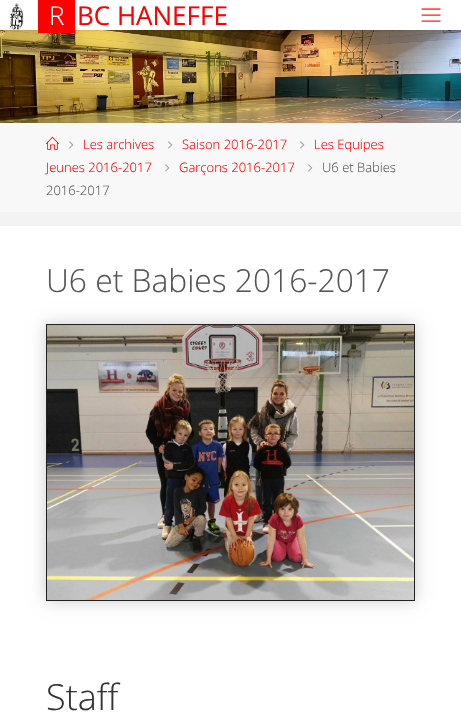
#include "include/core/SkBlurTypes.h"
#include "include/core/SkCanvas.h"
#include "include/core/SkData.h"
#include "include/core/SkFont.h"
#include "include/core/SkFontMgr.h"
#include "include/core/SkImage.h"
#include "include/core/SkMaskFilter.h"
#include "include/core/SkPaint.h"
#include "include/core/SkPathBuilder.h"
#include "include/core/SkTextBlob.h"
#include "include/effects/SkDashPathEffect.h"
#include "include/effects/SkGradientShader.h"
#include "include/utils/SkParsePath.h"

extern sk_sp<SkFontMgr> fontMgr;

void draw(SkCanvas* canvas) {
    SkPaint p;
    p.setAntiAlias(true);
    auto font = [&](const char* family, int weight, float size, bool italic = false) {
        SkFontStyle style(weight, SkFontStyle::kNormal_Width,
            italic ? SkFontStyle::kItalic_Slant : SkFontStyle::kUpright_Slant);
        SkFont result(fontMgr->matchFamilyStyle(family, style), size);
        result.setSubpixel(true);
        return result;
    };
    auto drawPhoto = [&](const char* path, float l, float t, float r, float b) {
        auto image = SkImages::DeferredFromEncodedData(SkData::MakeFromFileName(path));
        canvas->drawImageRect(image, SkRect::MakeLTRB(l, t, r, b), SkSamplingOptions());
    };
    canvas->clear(0xFFF3F3F3);
    drawPhoto("media/3.png", 0, 30, 461, 123);
    p.setColor(0x33000000);
    p.setMaskFilter(SkMaskFilter::MakeBlur(kNormal_SkBlurStyle, 1.5f));
    canvas->drawRect(SkRect::MakeLTRB(0, 0, 461, 30), p);
    p.setMaskFilter(nullptr);
    p.setColor(0xFFFFFFFF);
    canvas->drawRect(SkRect::MakeLTRB(0, 0, 461, 30), p);
    drawPhoto("media/1.png", 9, 3, 24, 30);
    p.setColor(0xFFFF0000);
    canvas->drawRect(SkRect::MakeLTRB(38, 0, 75, 33), p);
    auto font1 = font("Open Sans", 300, 26);
    p.setColor(0xFFFFFFFF);
    canvas->drawString("R", 49, 25, font1, p);
    auto font2 = font("Open Sans", 400, 26);
    p.setColor(0xFFFF0000);
    canvas->drawString("BC HANEFFE", 77, 25, font2, p);
    drawPhoto("media/2.png", 421, 8, 441, 22);
    p.setColor(0xFFF8F8F8);
    canvas->drawRect(SkRect::MakeLTRB(0, 123, 461, 212), p);
    drawPhoto("media/4.png", 46, 136, 59, 150);
    drawPhoto("media/5.png", 69, 141, 74, 149);
    auto font3 = font("Open Sans", 300, 13);
    p.setColor(0xFFFF0000);
    canvas->drawString("Les archives", 83, 149, font3, p);
    drawPhoto("media/5.png", 168, 141, 173, 149);
    canvas->drawString("Saison 2016-2017", 182, 149, font3, p);
    drawPhoto("media/5.png", 300, 141, 305, 149);
    canvas->drawString("Les Equipes", 314, 149, font3, p);
    canvas->drawString("Jeunes 2016-2017", 46, 172, font3, p);
    drawPhoto("media/5.png", 165, 164, 170, 172);
    canvas->drawString("Garçons 2016-2017", 179, 172, font3, p);
    drawPhoto("media/5.png", 308, 164, 313, 172);
    p.setColor(0xFF555555);
    canvas->drawString("U6 et Babies", 322, 172, font3, p);
    canvas->drawString("2016-2017", 46, 195, font3, p);
    p.setColor(0xFFFFFFFF);
    canvas->drawRect(SkRect::MakeLTRB(0, 226, 461, 717), p);
    auto font4 = font("Open Sans", 300, 31.75f);
    p.setColor(0xFF555555);
    canvas->drawString("U6 et Babies 2016-2017", 46, 292, font4, p);
    p.setColor(0xFFCCCCCC);
    p.setMaskFilter(SkMaskFilter::MakeBlur(kNormal_SkBlurStyle, 7.5f));
    canvas->drawRect(SkRect::MakeLTRB(46, 324, 415, 601), p);
    p.setMaskFilter(nullptr);
    p.setStyle(SkPaint::kStroke_Style);
    p.setStrokeWidth(1);
    p.setColor(0xFF222222);
    canvas->drawRect(SkRect::MakeLTRB(46.5f, 324.5f, 414.5f, 600.5f), p);
    drawPhoto("media/6.png", 47, 325, 414, 600);
    auto font5 = font("Open Sans", 300, 36);
    p.setStyle(SkPaint::kFill_Style);
    p.setColor(0xFF333333);
    canvas->drawString("Staff", 46, 710, font5, p);
}
